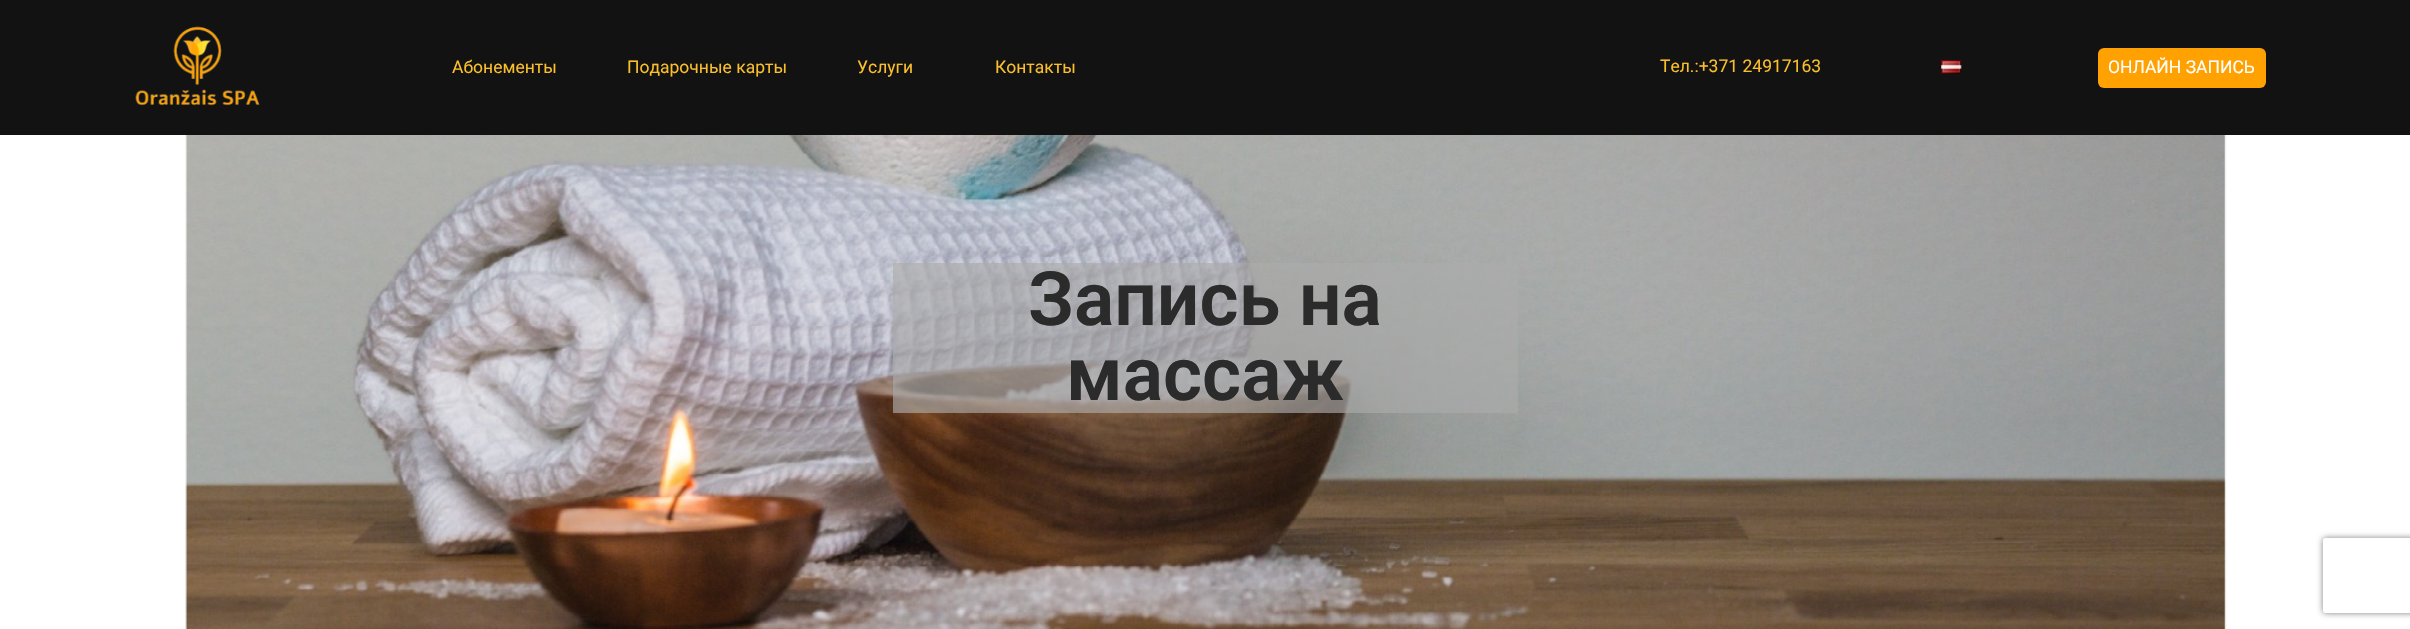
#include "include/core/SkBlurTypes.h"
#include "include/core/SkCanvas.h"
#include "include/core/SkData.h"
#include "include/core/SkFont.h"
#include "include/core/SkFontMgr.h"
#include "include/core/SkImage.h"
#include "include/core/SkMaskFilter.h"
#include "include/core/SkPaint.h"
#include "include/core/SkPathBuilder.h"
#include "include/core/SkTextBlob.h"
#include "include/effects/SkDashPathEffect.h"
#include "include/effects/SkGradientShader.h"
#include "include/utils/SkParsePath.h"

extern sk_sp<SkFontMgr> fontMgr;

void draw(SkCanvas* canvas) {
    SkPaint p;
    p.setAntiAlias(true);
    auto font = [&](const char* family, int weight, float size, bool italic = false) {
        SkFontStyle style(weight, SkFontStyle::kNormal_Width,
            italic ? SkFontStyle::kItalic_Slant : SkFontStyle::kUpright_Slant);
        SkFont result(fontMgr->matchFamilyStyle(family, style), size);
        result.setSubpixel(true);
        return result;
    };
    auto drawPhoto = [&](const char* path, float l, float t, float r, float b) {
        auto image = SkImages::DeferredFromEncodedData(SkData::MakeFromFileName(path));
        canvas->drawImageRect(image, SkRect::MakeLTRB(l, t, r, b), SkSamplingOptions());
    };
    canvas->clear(0xFFFFFFFF);
    p.setColor(0xFF121212);
    canvas->drawRect(SkRect::MakeLTRB(0, 0, 2410, 135), p);
    drawPhoto("media/1.png", 135, 26, 260, 106);
    auto font1 = font("Roboto", 400, 17.5f);
    p.setColor(0xFFFABF2A);
    {
        const struct { const char* s; float x, y; } items[] = {
            {"Абонементы", 452, 73},
            {"Подарочные карты", 627, 73},
            {"Услуги", 857, 73},
            {"Контакты", 995, 73},
            {"Тел.:+371 24917163", 1660, 72},
        };
        for (auto [s, x, y] : items) {
            canvas->drawString(s, x, y, font1, p);
        }
    }
    drawPhoto("media/2.png", 1941, 60, 1962, 74);
    p.setColor(0xFFFFA100);
    canvas->drawRoundRect(SkRect::MakeLTRB(2098, 48, 2266, 88), 6, 6, p);
    p.setColor(0xFFFFFFFF);
    canvas->drawString("ОНЛАЙН ЗАПИСЬ", 2108, 73, font1, p);
    drawPhoto("media/3.png", 185, 135, 2227, 629);
    p.setColor(0xA6AAAAAA);
    canvas->drawRect(SkRect::MakeLTRB(893, 263, 1518, 413), p);
    auto font2 = font("Roboto", 600, 75);
    p.setColor(0xFF2B2B2B);
    canvas->drawString("Запись на", 1028, 325, font2, p);
    canvas->drawString("массаж", 1066, 400, font2, p);
    canvas->save();
    canvas->clipPath(SkPathBuilder(SkPathFillType::kEvenOdd).moveTo(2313, 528).lineTo(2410, 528).lineTo(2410, 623).lineTo(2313, 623).close().moveTo(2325.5f, 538).lineTo(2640.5f, 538).cubicTo(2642, 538, 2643, 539, 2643, 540.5f).lineTo(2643, 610.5f).cubicTo(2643, 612, 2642, 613, 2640.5f, 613).lineTo(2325.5f, 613).cubicTo(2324, 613, 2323, 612, 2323, 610.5f).lineTo(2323, 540.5f).cubicTo(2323, 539, 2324, 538, 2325.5f, 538).close().detach(), true);
    p.setColor(0xFF808080);
    p.setMaskFilter(SkMaskFilter::MakeBlur(kNormal_SkBlurStyle, 3));
    canvas->drawRoundRect(SkRect::MakeLTRB(2323, 538, 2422, 613), 2.5f, 2.5f, p);
    p.setMaskFilter(nullptr);
    canvas->restore();
}
